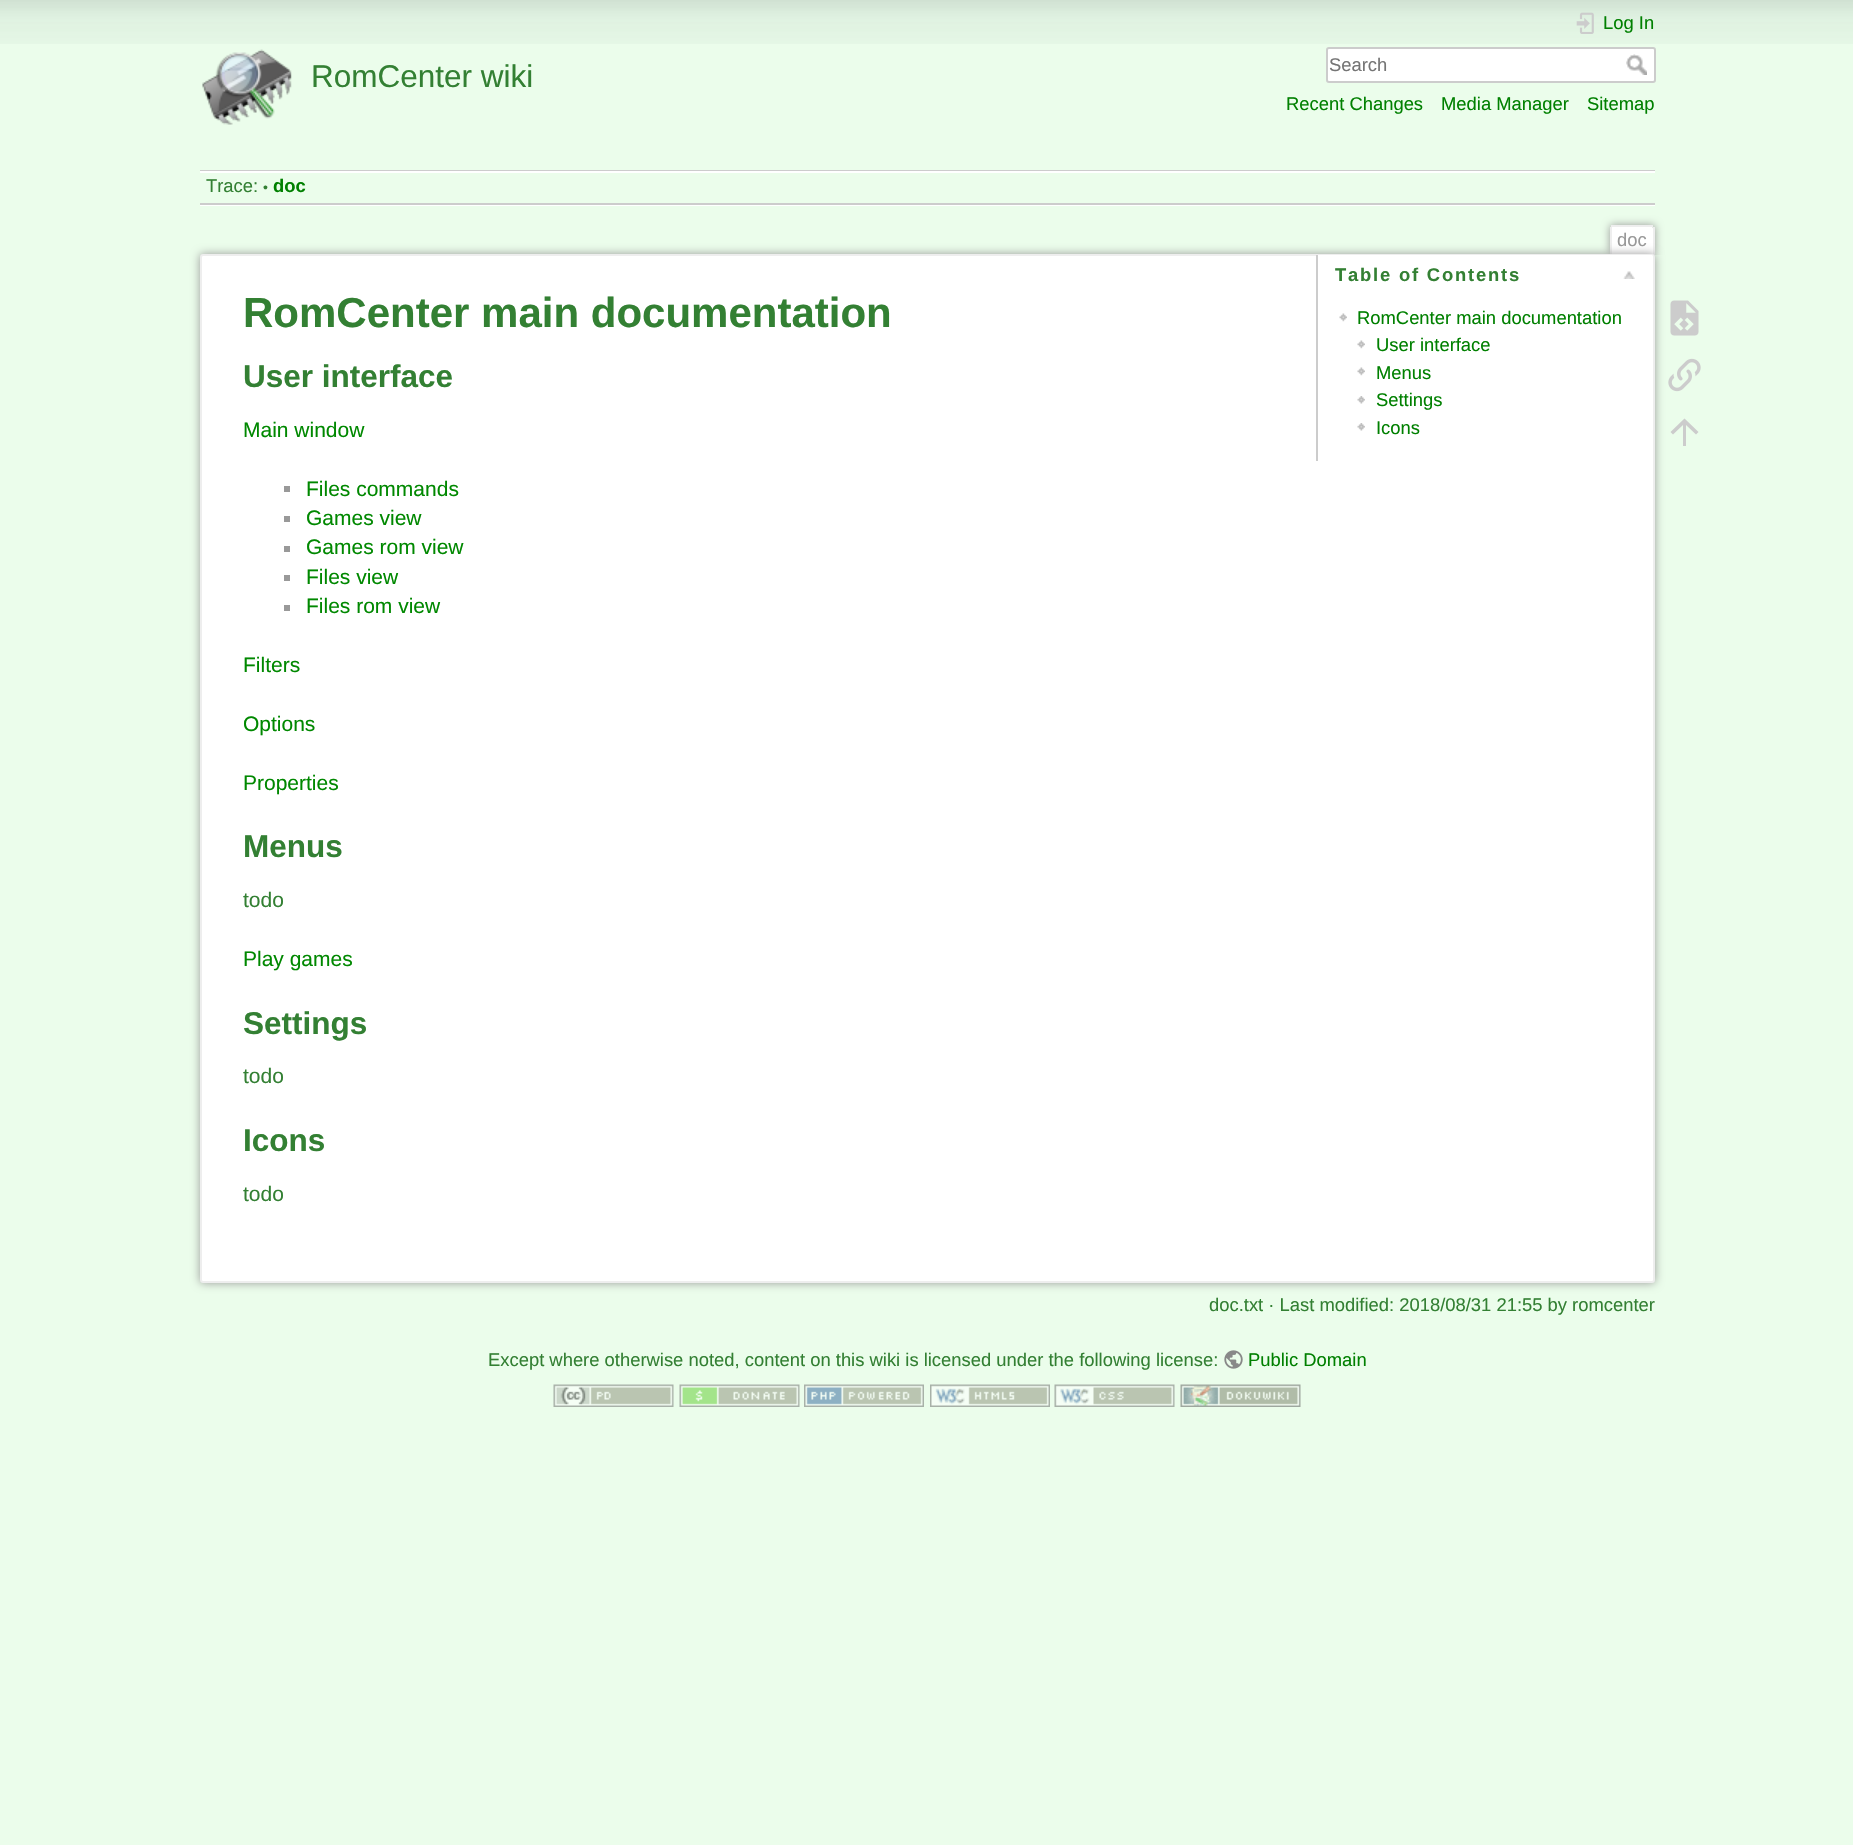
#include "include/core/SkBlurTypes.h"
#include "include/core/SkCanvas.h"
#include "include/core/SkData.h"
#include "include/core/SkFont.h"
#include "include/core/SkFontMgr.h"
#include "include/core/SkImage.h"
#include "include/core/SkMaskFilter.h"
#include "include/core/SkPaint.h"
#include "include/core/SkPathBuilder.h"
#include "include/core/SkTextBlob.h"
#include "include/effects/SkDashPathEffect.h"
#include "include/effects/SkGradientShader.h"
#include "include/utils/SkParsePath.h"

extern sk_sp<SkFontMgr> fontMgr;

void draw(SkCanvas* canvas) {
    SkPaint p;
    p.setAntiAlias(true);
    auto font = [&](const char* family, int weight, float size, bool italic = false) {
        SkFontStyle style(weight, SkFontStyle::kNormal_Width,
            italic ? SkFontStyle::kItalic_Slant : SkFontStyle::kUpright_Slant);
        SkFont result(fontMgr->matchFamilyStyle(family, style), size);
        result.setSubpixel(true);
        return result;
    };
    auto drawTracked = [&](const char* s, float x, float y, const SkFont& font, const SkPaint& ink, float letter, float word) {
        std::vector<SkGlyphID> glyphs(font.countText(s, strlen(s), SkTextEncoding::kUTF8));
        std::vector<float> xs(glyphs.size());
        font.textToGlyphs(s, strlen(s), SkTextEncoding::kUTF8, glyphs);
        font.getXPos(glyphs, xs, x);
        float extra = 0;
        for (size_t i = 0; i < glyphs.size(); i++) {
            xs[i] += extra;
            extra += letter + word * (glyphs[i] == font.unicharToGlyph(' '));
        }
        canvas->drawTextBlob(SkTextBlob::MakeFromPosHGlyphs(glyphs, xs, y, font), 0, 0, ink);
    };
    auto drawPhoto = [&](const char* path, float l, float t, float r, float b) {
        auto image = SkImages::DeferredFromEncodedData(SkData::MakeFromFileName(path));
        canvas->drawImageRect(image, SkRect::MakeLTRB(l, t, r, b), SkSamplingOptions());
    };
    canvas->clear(0xFFEBFDEB);
    drawPhoto("media/1.png", 0, 0, 1853, 44);
    drawPhoto("media/2.png", 202, 49, 292, 125);
    auto font1 = font("Liberation Sans", 400, 31.5f);
    p.setColor(0xFF338033);
    canvas->drawString("RomCenter wiki", 311, 87, font1, p);
    drawPhoto("media/3.png", 1576, 12, 1594, 34);
    auto font2 = font("Liberation Sans", 400, 18.4f);
    p.setColor(0xFF008000);
    canvas->drawString("Log In", 1603, 29, font2, p);
    p.setColor(0xFFFFFFFF);
    canvas->drawRoundRect(SkRect::MakeLTRB(1327, 48, 1655, 82), 2, 2, p);
    p.setStyle(SkPaint::kStroke_Style);
    p.setStrokeWidth(2);
    p.setColor(0xFFCCCCCC);
    canvas->drawRoundRect(SkRect::MakeLTRB(1327, 48, 1655, 82), 2, 2, p);
    p.setStyle(SkPaint::kFill_Style);
    p.setColor(0xFF757575);
    canvas->drawString("Search", 1329, 71, font2, p);
    drawPhoto("media/4.png", 1626, 54, 1647, 75);
    p.setColor(0xFF008000);
    {
        const struct { const char* s; float x, y; } items[] = {
            {"Recent Changes", 1286, 110},
            {"Media Manager", 1441, 110},
            {"Sitemap", 1587, 110},
        };
        for (auto [s, x, y] : items) {
            canvas->drawString(s, x, y, font2, p);
        }
    }
    {
        const struct { float l, t, r, b; SkColor color; } items[] = {
            {200, 170, 1655, 171, 0xFFCCCCCC},
            {200, 205, 1655, 206, 0xFFFFFFFF},
            {200, 171, 1655, 173, 0xFFFFFFFF},
            {200, 203, 1655, 205, 0xFFCCCCCC},
        };
        for (auto [l, t, r, b, color] : items) {
            p.setColor(color);
            canvas->drawRect(SkRect::MakeLTRB(l, t, r, b), p);
        }
    }
    p.setColor(0xFF338033);
    canvas->drawString("Trace:", 206, 192, font2, p);
    auto font3 = font("Liberation Sans", 400, 14);
    canvas->drawString("•", 263, 192, font3, p);
    auto font4 = font("Liberation Sans", 700, 18.4f);
    p.setColor(0xFF008000);
    canvas->drawString("doc", 273, 192, font4, p);
    canvas->save();
    canvas->clipRect(SkRect::MakeLTRB(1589, 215, 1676, 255));
    p.setColor(0xFF999999);
    p.setMaskFilter(SkMaskFilter::MakeBlur(kNormal_SkBlurStyle, 4.5f));
    canvas->drawRoundRect(SkRect::MakeLTRB(1610, 225, 1655, 255), 3, 3, p);
    p.setMaskFilter(nullptr);
    canvas->restore();
    p.setColor(0xFFFFFFFF);
    canvas->drawPath(SkPathBuilder().moveTo(1612.5f, 227).lineTo(1651.5f, 227).cubicTo(1652.5f, 227, 1653, 227.5f, 1653, 228.5f).lineTo(1653, 255).lineTo(1611, 255).lineTo(1611, 228.5f).cubicTo(1611, 227.5f, 1611.5f, 227, 1612.5f, 227).close().detach(), p);
    {
        const struct { float l, t, r, b; SkColor color; } items[] = {
            {1611, 225, 1653, 227, 0xFFEEEEEE},
            {1653, 227, 1655, 255, 0xFFEEEEEE},
            {1610, 227, 1612, 255, 0xFFEEEEEE},
        };
        for (auto [l, t, r, b, color] : items) {
            p.setColor(color);
            canvas->drawRect(SkRect::MakeLTRB(l, t, r, b), p);
        }
    }
    p.setColor(0xFF999999);
    canvas->drawString("doc", 1617, 246, font2, p);
    p.setMaskFilter(SkMaskFilter::MakeBlur(kNormal_SkBlurStyle, 5));
    canvas->drawRoundRect(SkRect::MakeLTRB(200, 254, 1655, 1283), 3, 3, p);
    p.setMaskFilter(nullptr);
    p.setColor(0xFFFFFFFF);
    canvas->drawRoundRect(SkRect::MakeLTRB(201, 255, 1654, 1282), 2, 2, p);
    p.setStyle(SkPaint::kStroke_Style);
    p.setColor(0xFFEEEEEE);
    canvas->drawRoundRect(SkRect::MakeLTRB(201, 255, 1654, 1282), 2, 2, p);
    auto font5 = font("Liberation Sans", 700, 42);
    p.setStyle(SkPaint::kFill_Style);
    p.setColor(0xFF338033);
    canvas->drawString("RomCenter main documentation", 243, 327, font5, p);
    p.setColor(0xFFFFFFFF);
    canvas->drawPath(SkPathBuilder().moveTo(1316, 255).lineTo(1651.5f, 255).cubicTo(1652.5f, 255, 1653, 255.5f, 1653, 256.5f).lineTo(1653, 461).lineTo(1316, 461).close().detach(), p);
    p.setColor(0xFFCCCCCC);
    canvas->drawRect(SkRect::MakeLTRB(1316, 255, 1318, 461), p);
    p.setColor(0xFF338033);
    drawTracked("Table of Contents", 1335, 281, font4, p, 1.8f, 0);
    drawPhoto("media/5.png", 1623, 271, 1635, 279);
    drawPhoto("media/6.png", 1339, 313, 1347, 322);
    p.setColor(0xFF008000);
    canvas->drawString("RomCenter main documentation", 1357, 324, font2, p);
    drawPhoto("media/6.png", 1357, 340, 1365, 349);
    canvas->drawString("User interface", 1376, 351, font2, p);
    drawPhoto("media/6.png", 1357, 367, 1365, 376);
    canvas->drawString("Menus", 1376, 379, font2, p);
    drawPhoto("media/7.png", 1357, 396, 1365, 404);
    canvas->drawString("Settings", 1376, 406, font2, p);
    drawPhoto("media/7.png", 1357, 423, 1365, 431);
    canvas->drawString("Icons", 1376, 434, font2, p);
    auto font6 = font("Liberation Sans", 700, 31.5f);
    p.setColor(0xFF338033);
    canvas->drawString("User interface", 243, 387, font6, p);
    auto font7 = font("Liberation Sans", 400, 21);
    p.setColor(0xFF008800);
    canvas->drawString("Main window", 243, 437, font7, p);
    p.setColor(0xFF999999);
    canvas->drawRect(SkRect::MakeLTRB(284, 486, 290, 492), p);
    p.setColor(0xFF008800);
    canvas->drawString("Files commands", 306, 496, font7, p);
    p.setColor(0xFF999999);
    canvas->drawRect(SkRect::MakeLTRB(284, 516, 290, 522), p);
    p.setColor(0xFF008800);
    canvas->drawString("Games view", 306, 525, font7, p);
    p.setColor(0xFF999999);
    canvas->drawRect(SkRect::MakeLTRB(284, 546, 290, 552), p);
    p.setColor(0xFF008800);
    canvas->drawString("Games rom view", 306, 554, font7, p);
    p.setColor(0xFF999999);
    canvas->drawRect(SkRect::MakeLTRB(284, 575, 290, 581), p);
    p.setColor(0xFF008800);
    canvas->drawString("Files view", 306, 584, font7, p);
    p.setColor(0xFF999999);
    canvas->drawRect(SkRect::MakeLTRB(284, 605, 290, 611), p);
    p.setColor(0xFF008800);
    {
        const struct { const char* s; float x, y; } items[] = {
            {"Files rom view", 306, 613},
            {"Filters", 243, 672},
            {"Options", 243, 731},
            {"Properties", 243, 790},
        };
        for (auto [s, x, y] : items) {
            canvas->drawString(s, x, y, font7, p);
        }
    }
    p.setColor(0xFF338033);
    canvas->drawString("Menus", 243, 857, font6, p);
    canvas->drawString("todo", 243, 907, font7, p);
    p.setColor(0xFF008800);
    canvas->drawString("Play games", 243, 966, font7, p);
    p.setColor(0xFF338033);
    canvas->drawString("Settings", 243, 1034, font6, p);
    canvas->drawString("todo", 243, 1083, font7, p);
    canvas->drawString("Icons", 243, 1151, font6, p);
    canvas->drawString("todo", 243, 1201, font7, p);
    canvas->drawString("doc.txt · Last modified: 2018/08/31 21:55 by romcenter", 1209, 1311, font2, p);
    drawPhoto("media/8.png", 1670, 300, 1699, 336);
    drawPhoto("media/9.png", 1668, 358, 1701, 392);
    p.setColor(0xFFCCCCCC);
    canvas->drawPath(SkPathBuilder().moveTo(1686, 446).lineTo(1683, 446).lineTo(1683, 425).lineTo(1673, 434.5f).lineTo(1670.5f, 432).lineTo(1684.5f, 418.5f).lineTo(1698.5f, 432).lineTo(1696, 434.5f).lineTo(1686, 425).close().detach(), p);
    p.setColor(0xFF338033);
    canvas->drawString("Except where otherwise noted, content on this wiki is licensed under the following license:", 488, 1366, font2, p);
    drawPhoto("media/10.png", 1224, 1350, 1243, 1369);
    p.setColor(0xFF008000);
    canvas->drawString("Public Domain", 1248, 1366, font2, p);
    drawPhoto("media/11.png", 553, 1384, 674, 1407);
    drawPhoto("media/12.png", 679, 1384, 800, 1407);
    drawPhoto("media/13.png", 804, 1384, 924, 1407);
    drawPhoto("media/14.png", 930, 1384, 1050, 1407);
    drawPhoto("media/15.png", 1054, 1384, 1175, 1407);
    drawPhoto("media/16.png", 1180, 1384, 1301, 1407);
}
